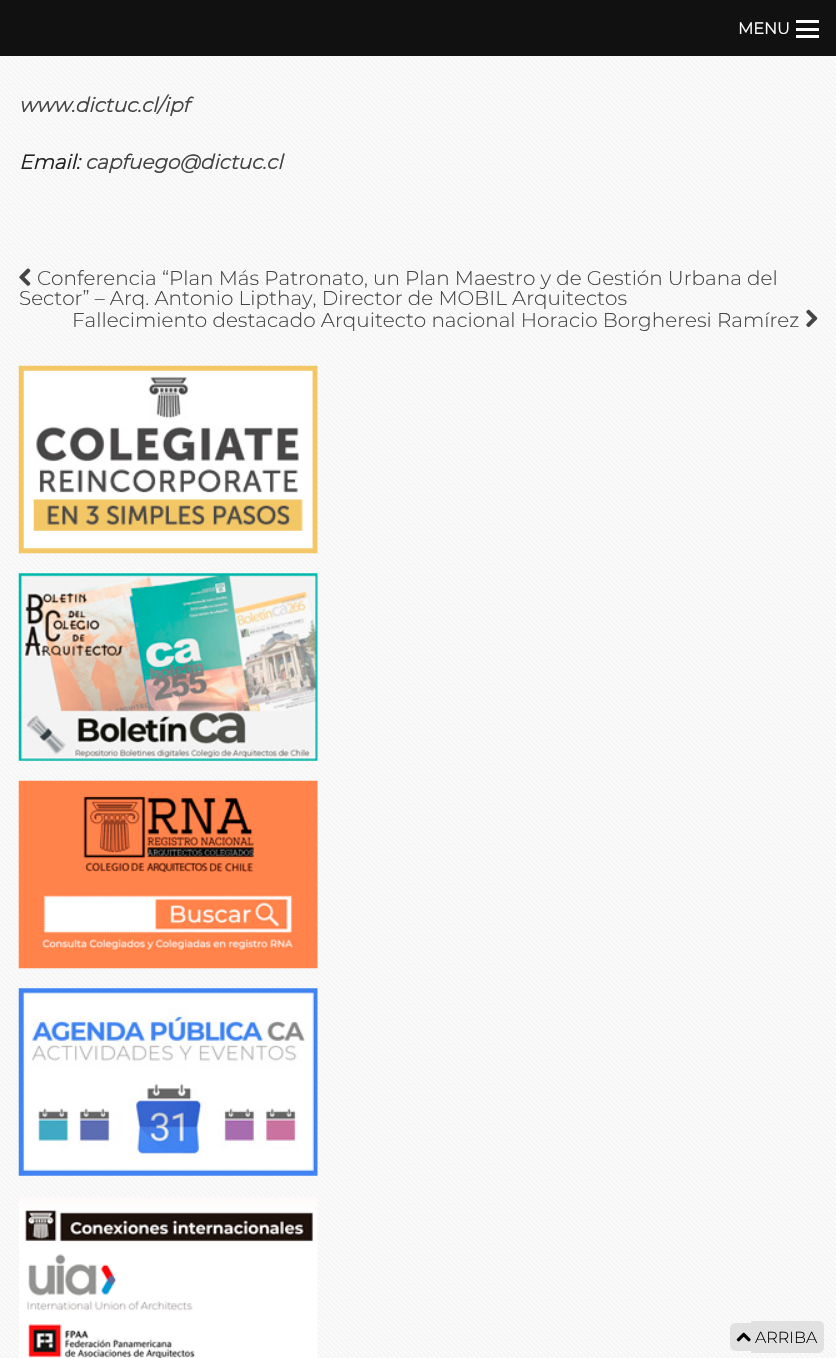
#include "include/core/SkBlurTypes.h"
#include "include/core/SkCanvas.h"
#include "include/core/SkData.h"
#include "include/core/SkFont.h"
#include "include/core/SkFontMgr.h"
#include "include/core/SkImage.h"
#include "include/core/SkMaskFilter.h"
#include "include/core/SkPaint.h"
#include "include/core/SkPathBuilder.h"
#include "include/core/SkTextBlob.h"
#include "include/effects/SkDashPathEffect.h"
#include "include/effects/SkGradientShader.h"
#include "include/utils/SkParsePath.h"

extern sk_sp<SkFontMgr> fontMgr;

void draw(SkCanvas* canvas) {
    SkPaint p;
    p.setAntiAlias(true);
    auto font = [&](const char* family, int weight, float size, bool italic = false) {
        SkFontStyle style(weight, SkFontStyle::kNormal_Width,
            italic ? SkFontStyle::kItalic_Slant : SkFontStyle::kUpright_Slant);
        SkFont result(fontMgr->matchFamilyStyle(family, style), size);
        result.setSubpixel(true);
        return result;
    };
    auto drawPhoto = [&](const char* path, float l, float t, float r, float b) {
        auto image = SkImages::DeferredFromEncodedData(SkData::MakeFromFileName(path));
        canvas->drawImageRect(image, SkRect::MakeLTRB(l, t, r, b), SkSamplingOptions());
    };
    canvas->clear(0xFFFFFFFF);
    drawPhoto("media/1.png", 0, 56, 836, 1358);
    {
        const struct { float l, t, r, b; SkColor color; } items[] = {
            {0, 0, 836, 56, 0xFF111111},
            {796, 35, 819, 38, 0xFFFFFFFF},
            {796, 28, 819, 31, 0xFFFFFFFF},
            {796, 20, 819, 23, 0xFFFFFFFF},
        };
        for (auto [l, t, r, b, color] : items) {
            p.setColor(color);
            canvas->drawRect(SkRect::MakeLTRB(l, t, r, b), p);
        }
    }
    auto font1 = font("Montserrat", 700, 16);
    canvas->drawString("MENU", 738, 34, font1, p);
    auto font2 = font("Montserrat", 700, 20, true);
    p.setColor(0xFF444444);
    canvas->drawString("www.dictuc.cl/ipf", 19, 112, font2, p);
    p.setColor(0xFF222222);
    canvas->drawString("Email:", 19, 169, font2, p);
    p.setColor(0xFF444444);
    canvas->drawString("capfuego@dictuc.cl", 85, 169, font2, p);
    drawPhoto("media/2.png", 19, 268, 31, 286);
    auto font3 = font("Montserrat", 100, 20);
    {
        const struct { const char* s; float x, y; } items[] = {
            {"Conferencia “Plan Más Patronato, un Plan Maestro y de Gestión Urbana del", 37, 285},
            {"Sector” – Arq. Antonio Lipthay, Director de MOBIL Arquitectos", 19, 305},
            {"Fallecimiento destacado Arquitecto nacional Horacio Borgheresi Ramírez", 72, 327},
        };
        for (auto [s, x, y] : items) {
            canvas->drawString(s, x, y, font3, p);
        }
    }
    drawPhoto("media/3.png", 806, 309, 818, 328);
    drawPhoto("media/4.png", 18, 365, 318, 554);
    drawPhoto("media/5.png", 18, 573, 318, 761);
    drawPhoto("media/6.png", 18, 780, 318, 969);
    drawPhoto("media/7.png", 18, 988, 318, 1176);
    drawPhoto("media/8.png", 19, 1196, 318, 1358);
    p.setColor(0xFFE1E1E1);
    canvas->drawPath(SkPathBuilder().moveTo(736, 1323).lineTo(751, 1323).lineTo(751, 1351).lineTo(736, 1351).cubicTo(732.5f, 1351, 730, 1348.5f, 730, 1345).lineTo(730, 1329).cubicTo(730, 1325.5f, 732.5f, 1323, 736, 1323).close().detach(), p);
    canvas->drawPath(SkPathBuilder().moveTo(751, 1321).lineTo(818, 1321).cubicTo(821.5f, 1321, 824, 1323.5f, 824, 1327).lineTo(824, 1347).cubicTo(824, 1350.5f, 821.5f, 1353, 818, 1353).lineTo(751, 1353).close().detach(), p);
    drawPhoto("media/9.png", 736, 1332, 751, 1342);
    auto font4 = font("Montserrat", 100, 16);
    p.setColor(0xFF000000);
    canvas->drawString("ARRIBA", 755, 1343, font4, p);
}
